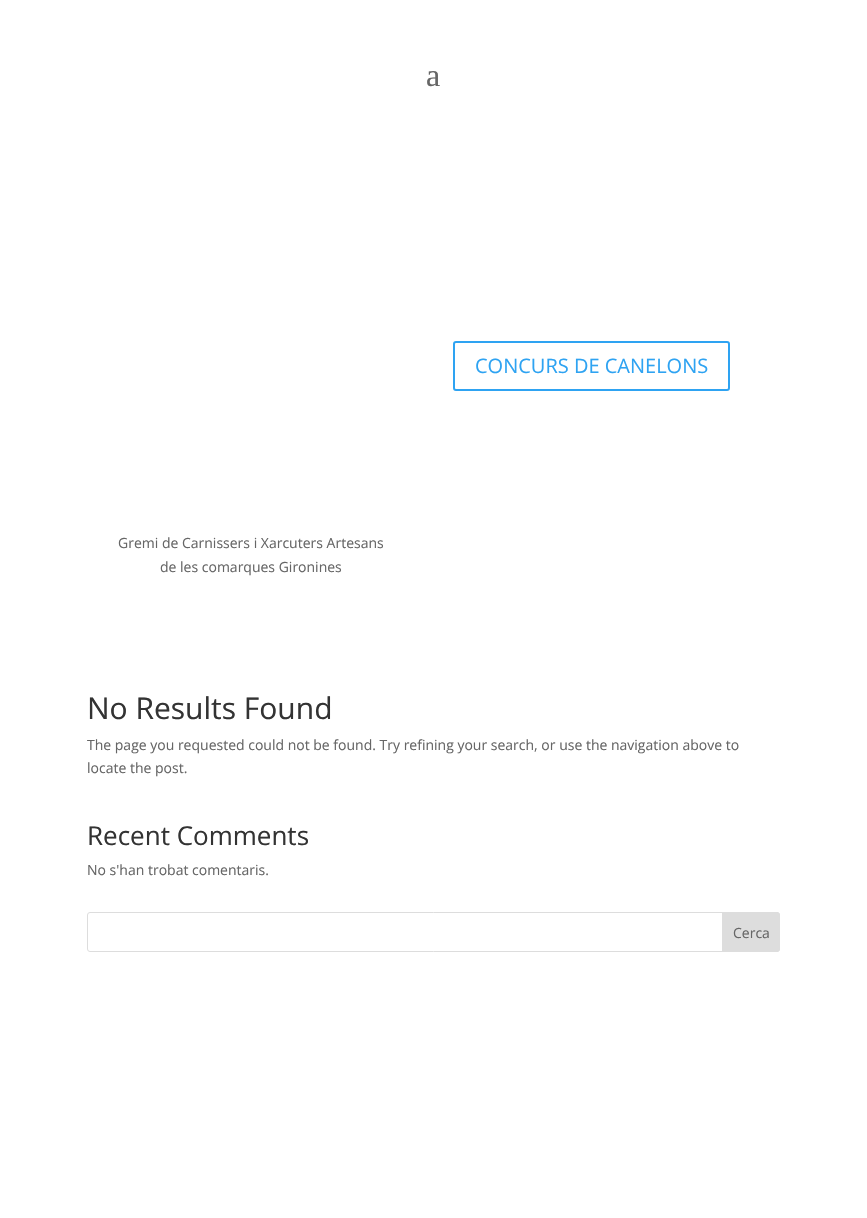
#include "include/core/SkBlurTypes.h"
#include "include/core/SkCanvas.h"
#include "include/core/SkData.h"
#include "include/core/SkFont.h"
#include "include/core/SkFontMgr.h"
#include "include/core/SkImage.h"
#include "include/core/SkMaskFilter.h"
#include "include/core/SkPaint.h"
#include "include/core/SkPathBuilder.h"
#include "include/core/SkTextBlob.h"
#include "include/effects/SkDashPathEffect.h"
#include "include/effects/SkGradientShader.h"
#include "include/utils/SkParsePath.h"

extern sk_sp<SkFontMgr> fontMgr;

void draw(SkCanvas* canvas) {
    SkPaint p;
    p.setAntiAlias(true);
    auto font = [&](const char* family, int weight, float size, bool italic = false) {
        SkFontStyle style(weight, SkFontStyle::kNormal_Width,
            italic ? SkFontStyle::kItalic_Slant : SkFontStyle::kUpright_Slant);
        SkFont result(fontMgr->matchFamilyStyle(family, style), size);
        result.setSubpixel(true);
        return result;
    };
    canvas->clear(0xFFFFFFFF);
    auto font1 = font("Liberation Serif", 400, 32);
    p.setColor(0xFF666666);
    canvas->drawString("a", 426, 86, font1, p);
    p.setStyle(SkPaint::kStroke_Style);
    p.setStrokeWidth(2);
    p.setColor(0xFF2EA3F2);
    canvas->drawRoundRect(SkRect::MakeLTRB(454, 342, 729, 390), 2, 2, p);
    auto font2 = font("Open Sans", 400, 20);
    p.setStyle(SkPaint::kFill_Style);
    canvas->drawString("CONCURS DE CANELONS", 475, 373, font2, p);
    auto font3 = font("Open Sans", 400, 14);
    p.setColor(0xFF666666);
    canvas->drawString("Gremi de Carnissers i Xarcuters Artesans", 118, 548, font3, p);
    canvas->drawString("de les comarques Gironines", 160, 572, font3, p);
    auto font4 = font("Open Sans", 400, 30);
    p.setColor(0xFF333333);
    canvas->drawString("No Results Found", 87, 719, font4, p);
    p.setColor(0xFF666666);
    canvas->drawString("The page you requested could not be found. Try refining your search, or use the navigation above to", 87, 750, font3, p);
    canvas->drawString("locate the post.", 87, 773, font3, p);
    auto font5 = font("Open Sans", 400, 26);
    p.setColor(0xFF333333);
    canvas->drawString("Recent Comments", 87, 845, font5, p);
    p.setColor(0xFF666666);
    canvas->drawString("No s'han trobat comentaris.", 87, 875, font3, p);
    p.setStyle(SkPaint::kStroke_Style);
    p.setStrokeWidth(1);
    p.setColor(0xFFDDDDDD);
    canvas->drawRoundRect(SkRect::MakeLTRB(87.5f, 912.5f, 779.5f, 951.5f), 2.5f, 2.5f, p);
    p.setStyle(SkPaint::kFill_Style);
    canvas->drawPath(SkPathBuilder().moveTo(722.5f, 912.5f).lineTo(777, 912.5f).cubicTo(778.5f, 912.5f, 779.5f, 913.5f, 779.5f, 915).lineTo(779.5f, 949).cubicTo(779.5f, 950.5f, 778.5f, 951.5f, 777, 951.5f).lineTo(722.5f, 951.5f).close().detach(), p);
    p.setStyle(SkPaint::kStroke_Style);
    canvas->drawPath(SkPathBuilder().moveTo(722.5f, 912.5f).lineTo(777, 912.5f).cubicTo(778.5f, 912.5f, 779.5f, 913.5f, 779.5f, 915).lineTo(779.5f, 949).cubicTo(779.5f, 950.5f, 778.5f, 951.5f, 777, 951.5f).lineTo(722.5f, 951.5f).close().detach(), p);
    p.setStyle(SkPaint::kFill_Style);
    p.setColor(0xFF666666);
    canvas->drawString("Cerca", 733, 938, font3, p);
}
